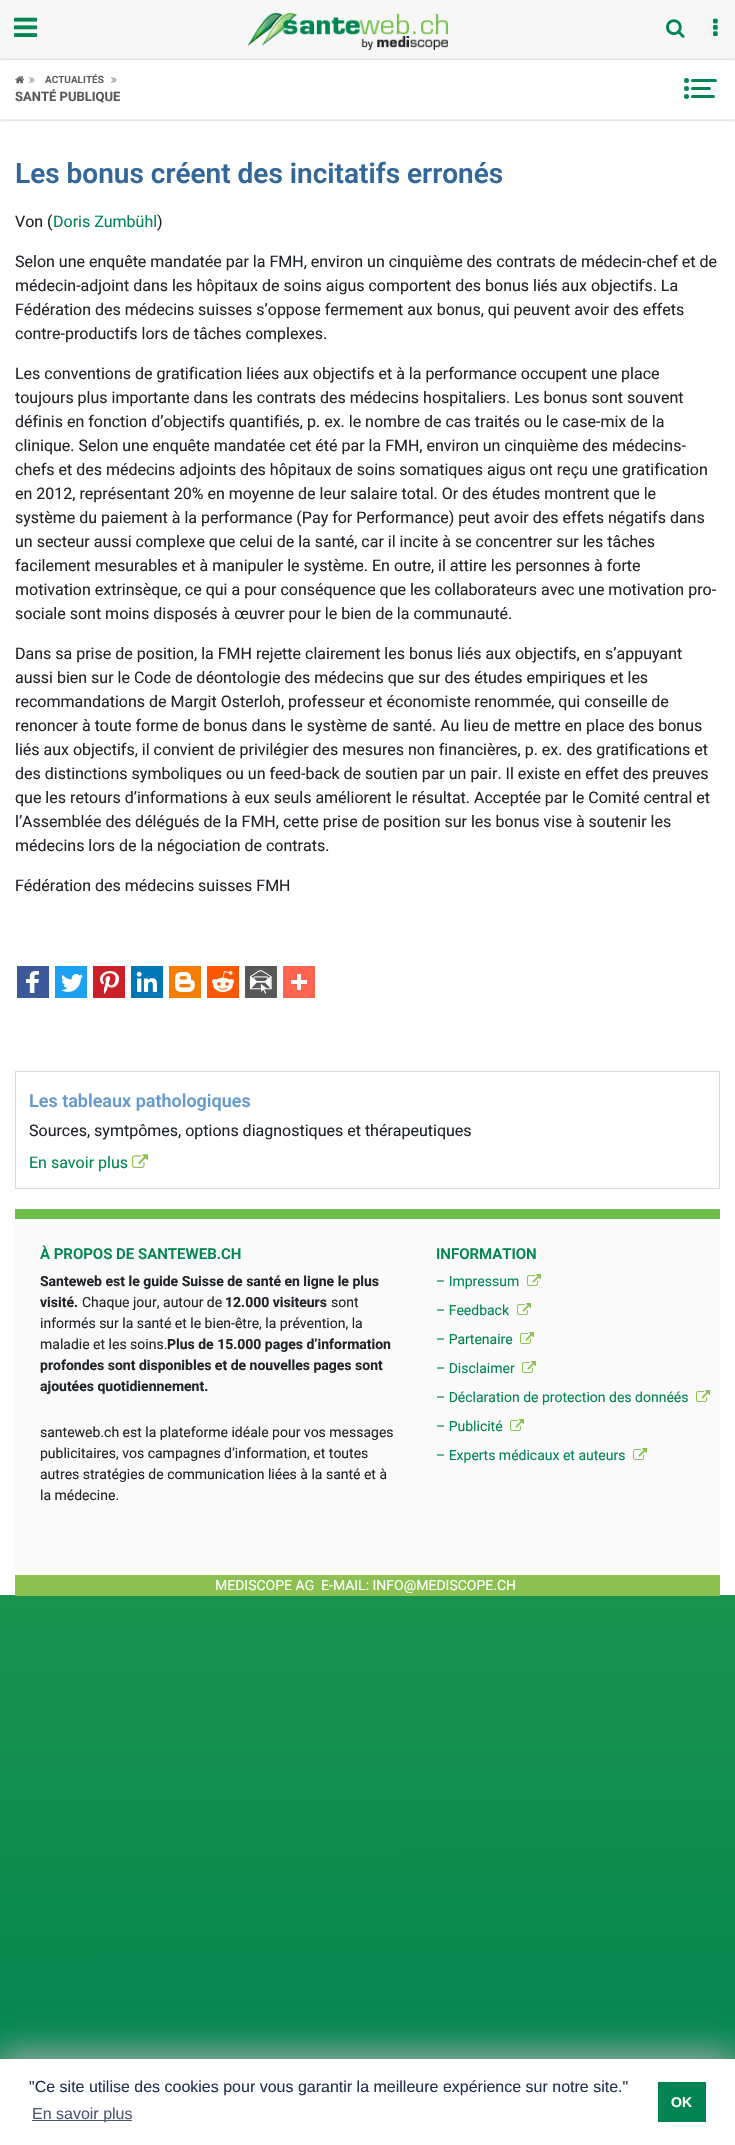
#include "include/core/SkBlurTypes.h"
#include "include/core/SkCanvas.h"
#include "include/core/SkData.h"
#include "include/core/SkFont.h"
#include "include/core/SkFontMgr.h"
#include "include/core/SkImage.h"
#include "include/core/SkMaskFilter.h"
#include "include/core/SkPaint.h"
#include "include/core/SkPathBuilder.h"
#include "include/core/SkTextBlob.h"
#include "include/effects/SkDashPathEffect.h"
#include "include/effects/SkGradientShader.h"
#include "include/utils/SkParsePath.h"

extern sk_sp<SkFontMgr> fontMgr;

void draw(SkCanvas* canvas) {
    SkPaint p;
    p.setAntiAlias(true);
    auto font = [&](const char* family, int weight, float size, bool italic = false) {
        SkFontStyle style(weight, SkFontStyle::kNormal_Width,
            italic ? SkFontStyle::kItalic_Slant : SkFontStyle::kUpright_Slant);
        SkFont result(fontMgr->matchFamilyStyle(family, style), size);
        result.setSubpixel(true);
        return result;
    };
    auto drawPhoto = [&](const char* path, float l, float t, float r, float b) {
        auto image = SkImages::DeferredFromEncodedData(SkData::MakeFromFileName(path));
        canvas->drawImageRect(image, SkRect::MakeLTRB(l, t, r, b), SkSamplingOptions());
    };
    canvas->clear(0xFFFFFFFF);
    {
        const SkColor colors[] = {0xFF63B94D, 0xFF018551};
        const float stops[] = {0, 1};
        const SkPoint ends[] = {{367, 0}, {368, 2145}};
        p.setShader(SkGradientShader::MakeLinear(ends, colors, stops, 2, SkTileMode::kClamp));
        p.setAlpha(255);
    }
    canvas->drawRect(SkRect::MakeLTRB(0, 1595, 735, 2059), p);
    p.setShader(nullptr);
    p.setColor(0xFFF7F7F7);
    canvas->drawRect(SkRect::MakeLTRB(0, 0, 735, 60), p);
    drawPhoto("media/1.png", 248, 12, 448, 50);
    drawPhoto("media/2.png", 14, 17, 38, 37);
    drawPhoto("media/3.png", 666, 19, 685, 38);
    drawPhoto("media/4.png", 713, 18, 718, 36);
    p.setColor(0x4D000000);
    p.setMaskFilter(SkMaskFilter::MakeBlur(kNormal_SkBlurStyle, 1));
    canvas->drawRect(SkRect::MakeLTRB(0, 60, 735, 120), p);
    p.setMaskFilter(nullptr);
    p.setColor(0xFFFFFFFF);
    canvas->drawRect(SkRect::MakeLTRB(0, 60, 735, 119), p);
    p.setColor(0xFFEFEFEF);
    canvas->drawRect(SkRect::MakeLTRB(0, 119, 735, 120), p);
    drawPhoto("media/5.png", 15, 76, 25, 84);
    drawPhoto("media/6.png", 29, 77, 35, 83);
    auto font1 = font("Roboto", 600, 10);
    p.setColor(0xFF595959);
    canvas->drawString("ACTUALITÉS", 45, 83, font1, p);
    drawPhoto("media/6.png", 111, 77, 117, 83);
    auto font2 = font("Roboto", 700, 13);
    canvas->drawString("SANTÉ PUBLIQUE", 15, 101, font2, p);
    p.setColor(0xFF018552);
    canvas->drawRoundRect(SkRect::MakeLTRB(691, 79, 717, 82), 1.5f, 1.5f, p);
    canvas->drawCircle(686.5f, 80.5f, 2.5f, p);
    canvas->drawCircle(686.5f, 88.5f, 2.5f, p);
    canvas->drawRoundRect(SkRect::MakeLTRB(691, 87, 711, 90), 1.5f, 1.5f, p);
    canvas->drawRoundRect(SkRect::MakeLTRB(691, 95, 715, 98), 1.5f, 1.5f, p);
    canvas->drawCircle(686.5f, 96.5f, 2.5f, p);
    auto font3 = font("Roboto", 600, 28);
    p.setColor(0xFF336799);
    canvas->drawString("Les bonus créent des incitatifs erronés", 15, 183, font3, p);
    auto font4 = font("Roboto", 400, 16);
    p.setColor(0xFF212529);
    canvas->drawString("Von (", 15, 227, font4, p);
    p.setColor(0xFF018552);
    canvas->drawString("Doris Zumbühl", 53, 227, font4, p);
    p.setColor(0xFF212529);
    {
        const struct { const char* s; float x, y; } items[] = {
            {")", 157, 227},
            {"Selon une enquête mandatée par la FMH, environ un cinquième des contrats de médecin-chef et de", 15, 267},
            {"médecin-adjoint dans les hôpitaux de soins aigus comportent des bonus liés aux objectifs. La", 15, 291},
            {"Fédération des médecins suisses s’oppose fermement aux bonus, qui peuvent avoir des effets", 15, 315},
            {"contre-productifs lors de tâches complexes.", 15, 339},
            {"Les conventions de gratification liées aux objectifs et à la performance occupent une place", 15, 379},
            {"toujours plus importante dans les contrats des médecins hospitaliers. Les bonus sont souvent", 15, 403},
            {"définis en fonction d’objectifs quantifiés, p. ex. le nombre de cas traités ou le case-mix de la", 15, 427},
            {"clinique. Selon une enquête mandatée cet été par la FMH, environ un cinquième des médecins-", 15, 451},
            {"chefs et des médecins adjoints des hôpitaux de soins somatiques aigus ont reçu une gratification", 15, 475},
            {"en 2012, représentant 20% en moyenne de leur salaire total. Or des études montrent que le", 15, 499},
            {"système du paiement à la performance (Pay for Performance) peut avoir des effets négatifs dans", 15, 523},
            {"un secteur aussi complexe que celui de la santé, car il incite à se concentrer sur les tâches", 15, 547},
            {"facilement mesurables et à manipuler le système. En outre, il attire les personnes à forte", 15, 571},
            {"motivation extrinsèque, ce qui a pour conséquence que les collaborateurs avec une motivation pro-", 15, 595},
            {"sociale sont moins disposés à œuvrer pour le bien de la communauté.", 15, 619},
            {"Dans sa prise de position, la FMH rejette clairement les bonus liés aux objectifs, en s’appuyant", 15, 659},
            {"aussi bien sur le Code de déontologie des médecins que sur des études empiriques et les", 15, 683},
            {"recommandations de Margit Osterloh, professeur et économiste renommée, qui conseille de", 15, 707},
            {"renoncer à toute forme de bonus dans le système de santé. Au lieu de mettre en place des bonus", 15, 731},
            {"liés aux objectifs, il convient de privilégier des mesures non financières, p. ex. des gratifications et", 15, 755},
            {"des distinctions symboliques ou un feed-back de soutien par un pair. Il existe en effet des preuves", 15, 779},
            {"que les retours d’informations à eux seuls améliorent le résultat. Acceptée par le Comité central et", 15, 803},
            {"l’Assemblée des délégués de la FMH, cette prise de position sur les bonus vise à soutenir les", 15, 827},
            {"médecins lors de la négociation de contrats.", 15, 851},
            {"Fédération des médecins suisses FMH", 15, 891},
        };
        for (auto [s, x, y] : items) {
            canvas->drawString(s, x, y, font4, p);
        }
    }
    p.setColor(0xFF3B5998);
    canvas->drawRect(SkRect::MakeLTRB(17, 966, 49, 998), p);
    drawPhoto("media/7.png", 26, 971, 39, 993);
    p.setColor(0xFF1DA1F2);
    canvas->drawRect(SkRect::MakeLTRB(55, 966, 87, 998), p);
    drawPhoto("media/8.png", 61, 974, 83, 992);
    p.setColor(0xFFCB2027);
    canvas->drawRect(SkRect::MakeLTRB(93, 966, 125, 998), p);
    drawPhoto("media/9.png", 100, 971, 119, 994);
    p.setColor(0xFF0077B5);
    canvas->drawRect(SkRect::MakeLTRB(131, 966, 163, 998), p);
    drawPhoto("media/10.png", 136, 971, 157, 992);
    p.setColor(0xFFF57D00);
    canvas->drawRect(SkRect::MakeLTRB(169, 966, 201, 998), p);
    drawPhoto("media/11.png", 175, 972, 195, 992);
    p.setColor(0xFFFF5700);
    canvas->drawRect(SkRect::MakeLTRB(207, 966, 239, 998), p);
    drawPhoto("media/12.png", 212, 971, 234, 992);
    p.setColor(0xFF585858);
    canvas->drawRect(SkRect::MakeLTRB(245, 966, 277, 998), p);
    drawPhoto("media/13.png", 249, 970, 272, 994);
    p.setColor(0xFFFF6550);
    canvas->drawRect(SkRect::MakeLTRB(283, 966, 315, 998), p);
    drawPhoto("media/14.png", 291, 974, 307, 990);
    p.setStyle(SkPaint::kStroke_Style);
    p.setStrokeWidth(1);
    p.setColor(0xFFDADADA);
    canvas->drawRect(SkRect::MakeLTRB(15.5f, 1071.5f, 719.5f, 1188.5f), p);
    auto font5 = font("Roboto", 600, 18);
    p.setStyle(SkPaint::kFill_Style);
    p.setColor(0xFF669ACC);
    canvas->drawString("Les tableaux pathologiques", 29, 1107, font5, p);
    p.setColor(0xFF212529);
    canvas->drawString("Sources, symtpômes, options diagnostiques et thérapeutiques", 29, 1136, font4, p);
    p.setColor(0xFF018552);
    canvas->drawString("En savoir plus", 29, 1168, font4, p);
    drawPhoto("media/15.png", 132, 1154, 148, 1168);
    p.setColor(0xFFFAFAFA);
    canvas->drawRect(SkRect::MakeLTRB(15, 1219, 720, 1571), p);
    p.setColor(0xFF6FBE4D);
    canvas->drawRect(SkRect::MakeLTRB(15, 1209, 720, 1219), p);
    auto font6 = font("Roboto", 600, 15);
    p.setColor(0xFF018552);
    canvas->drawString("À PROPOS DE SANTEWEB.CH", 40, 1259, font6, p);
    auto font7 = font("Roboto", 700, 14);
    p.setColor(0xFF212529);
    canvas->drawString("Santeweb est le guide Suisse de santé en ligne le plus", 40, 1286, font7, p);
    canvas->drawString("visité.", 40, 1307, font7, p);
    auto font8 = font("Roboto", 400, 14);
    canvas->drawString("Chaque jour, autour de", 82, 1307, font8, p);
    canvas->drawString("12.000 visiteurs", 225, 1307, font7, p);
    {
        const struct { const char* s; float x, y; } items[] = {
            {"sont", 331, 1307},
            {"informés sur la santé et le bien-être, la prévention, la", 40, 1328},
            {"maladie et les soins.", 40, 1349},
        };
        for (auto [s, x, y] : items) {
            canvas->drawString(s, x, y, font8, p);
        }
    }
    {
        const struct { const char* s; float x, y; } items[] = {
            {"Plus de 15.000 pages d’information", 167, 1349},
            {"profondes sont disponibles et de nouvelles pages sont", 40, 1370},
            {"ajoutées quotidiennement.", 40, 1391},
        };
        for (auto [s, x, y] : items) {
            canvas->drawString(s, x, y, font7, p);
        }
    }
    {
        const struct { const char* s; float x, y; } items[] = {
            {"santeweb.ch est la plateforme idéale pour vos messages", 40, 1437},
            {"publicitaires, vos campagnes d’information, et toutes", 40, 1458},
            {"autres stratégies de communication liées à la santé et à", 40, 1479},
            {"la médecine.", 40, 1500},
        };
        for (auto [s, x, y] : items) {
            canvas->drawString(s, x, y, font8, p);
        }
    }
    p.setColor(0xFF018552);
    canvas->drawString("INFORMATION", 436, 1259, font6, p);
    canvas->drawString("– Impressum", 436, 1286, font8, p);
    drawPhoto("media/16.png", 527, 1274, 541, 1286);
    canvas->drawString("– Feedback", 436, 1315, font8, p);
    drawPhoto("media/16.png", 517, 1303, 531, 1315);
    canvas->drawString("– Partenaire", 436, 1344, font8, p);
    drawPhoto("media/16.png", 520, 1332, 534, 1344);
    canvas->drawString("– Disclaimer", 436, 1373, font8, p);
    drawPhoto("media/16.png", 522, 1361, 536, 1373);
    canvas->drawString("– Déclaration de protection des donnéés", 436, 1402, font8, p);
    drawPhoto("media/16.png", 696, 1390, 710, 1402);
    canvas->drawString("– Publicité", 436, 1431, font8, p);
    drawPhoto("media/16.png", 510, 1419, 524, 1431);
    canvas->drawString("– Experts médicaux et auteurs", 436, 1460, font8, p);
    drawPhoto("media/16.png", 633, 1448, 647, 1460);
    p.setColor(0xFF8CC152);
    canvas->drawRect(SkRect::MakeLTRB(15, 1575, 720, 1596), p);
    p.setColor(0xFFFFFFFF);
    canvas->drawString("MEDISCOPE AG  E-MAIL: INFO@MEDISCOPE.CH", 215, 1590, font8, p);
    p.setColor(0xFFABABAB);
    p.setMaskFilter(SkMaskFilter::MakeBlur(kNormal_SkBlurStyle, 17));
    canvas->drawRect(SkRect::MakeLTRB(-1, 2053, 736, 2141), p);
    p.setMaskFilter(nullptr);
    p.setColor(0xFFFFFFFF);
    canvas->drawRect(SkRect::MakeLTRB(0, 2059, 735, 2145), p);
    auto font9 = font("Liberation Sans", 400, 16);
    p.setColor(0xFF243050);
    canvas->drawString("\"Ce site utilise des cookies pour vous garantir la meilleure expérience sur notre site.\"", 29, 2092, font9, p);
    p.setColor(0xFF505973);
    canvas->drawRect(SkRect::MakeLTRB(32, 2120, 132, 2121), p);
    canvas->drawString("En savoir plus", 32, 2119, font9, p);
    p.setColor(0xFF018352);
    canvas->drawRect(SkRect::MakeLTRB(658, 2082, 706, 2122), p);
    auto font10 = font("Liberation Sans", 700, 14);
    p.setColor(0xFFFFFFFF);
    canvas->drawString("OK", 671, 2107, font10, p);
}
